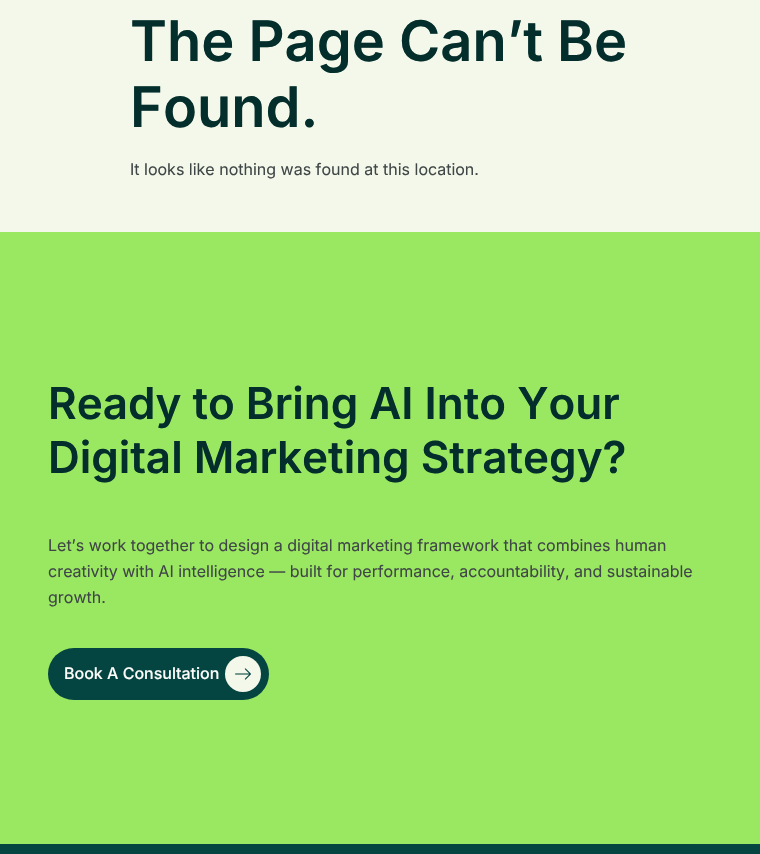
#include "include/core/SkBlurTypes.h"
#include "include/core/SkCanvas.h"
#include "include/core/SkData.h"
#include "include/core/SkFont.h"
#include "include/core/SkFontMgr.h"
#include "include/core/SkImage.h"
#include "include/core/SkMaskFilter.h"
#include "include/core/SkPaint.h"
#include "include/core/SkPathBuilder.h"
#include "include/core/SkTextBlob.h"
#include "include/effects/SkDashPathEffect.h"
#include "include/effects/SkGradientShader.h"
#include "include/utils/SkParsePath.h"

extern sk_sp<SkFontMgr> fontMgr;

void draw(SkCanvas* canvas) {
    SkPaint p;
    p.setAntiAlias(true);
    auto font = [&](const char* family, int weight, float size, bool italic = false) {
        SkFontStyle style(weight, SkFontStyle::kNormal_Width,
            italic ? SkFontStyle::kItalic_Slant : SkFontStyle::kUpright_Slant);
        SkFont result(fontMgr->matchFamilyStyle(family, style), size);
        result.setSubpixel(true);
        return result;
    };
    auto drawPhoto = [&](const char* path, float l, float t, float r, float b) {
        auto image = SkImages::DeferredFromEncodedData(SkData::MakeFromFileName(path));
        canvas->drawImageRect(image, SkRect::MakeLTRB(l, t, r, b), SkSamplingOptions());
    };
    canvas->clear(0xFFF4F8EA);
    auto font1 = font("Inter", 600, 56);
    p.setColor(0xFF032E2C);
    canvas->drawString("The Page Can’t Be", 130, 61, font1, p);
    canvas->drawString("Found.", 130, 127, font1, p);
    auto font2 = font("Inter", 400, 16);
    p.setColor(0xFF404747);
    canvas->drawString("It looks like nothing was found at this location.", 130, 175, font2, p);
    p.setColor(0xFF044441);
    canvas->drawRect(SkRect::MakeLTRB(0, 844, 760, 854), p);
    p.setColor(0xFF808080);
    p.setMaskFilter(SkMaskFilter::MakeBlur(kNormal_SkBlurStyle, 2.5f));
    canvas->drawRoundRect(SkRect::MakeLTRB(690, 780, 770, 840), 2, 2, p);
    p.setMaskFilter(nullptr);
    p.setColor(0xFF9AE761);
    canvas->drawRect(SkRect::MakeLTRB(0, 232, 760, 844), p);
    auto font3 = font("Inter", 600, 44);
    p.setColor(0xFF032E2C);
    canvas->drawString("Ready to Bring AI Into Your", 48, 419, font3, p);
    canvas->drawString("Digital Marketing Strategy?", 48, 473, font3, p);
    p.setColor(0xFF404747);
    {
        const struct { const char* s; float x, y; } items[] = {
            {"Let’s work together to design a digital marketing framework that combines human", 48, 551},
            {"creativity with AI intelligence — built for performance, accountability, and sustainable", 48, 577},
            {"growth.", 48, 603},
        };
        for (auto [s, x, y] : items) {
            canvas->drawString(s, x, y, font2, p);
        }
    }
    p.setColor(0xFF044441);
    canvas->drawRoundRect(SkRect::MakeLTRB(48, 648, 269, 700), 26, 26, p);
    auto font4 = font("Inter", 500, 16);
    p.setColor(0xFFFDFEFB);
    canvas->drawString("Book A Consultation", 64, 679, font4, p);
    p.setColor(0xFFF4F8EA);
    canvas->drawCircle(243, 674, 18, p);
    drawPhoto("media/1.png", 235, 668, 251, 680);
}
